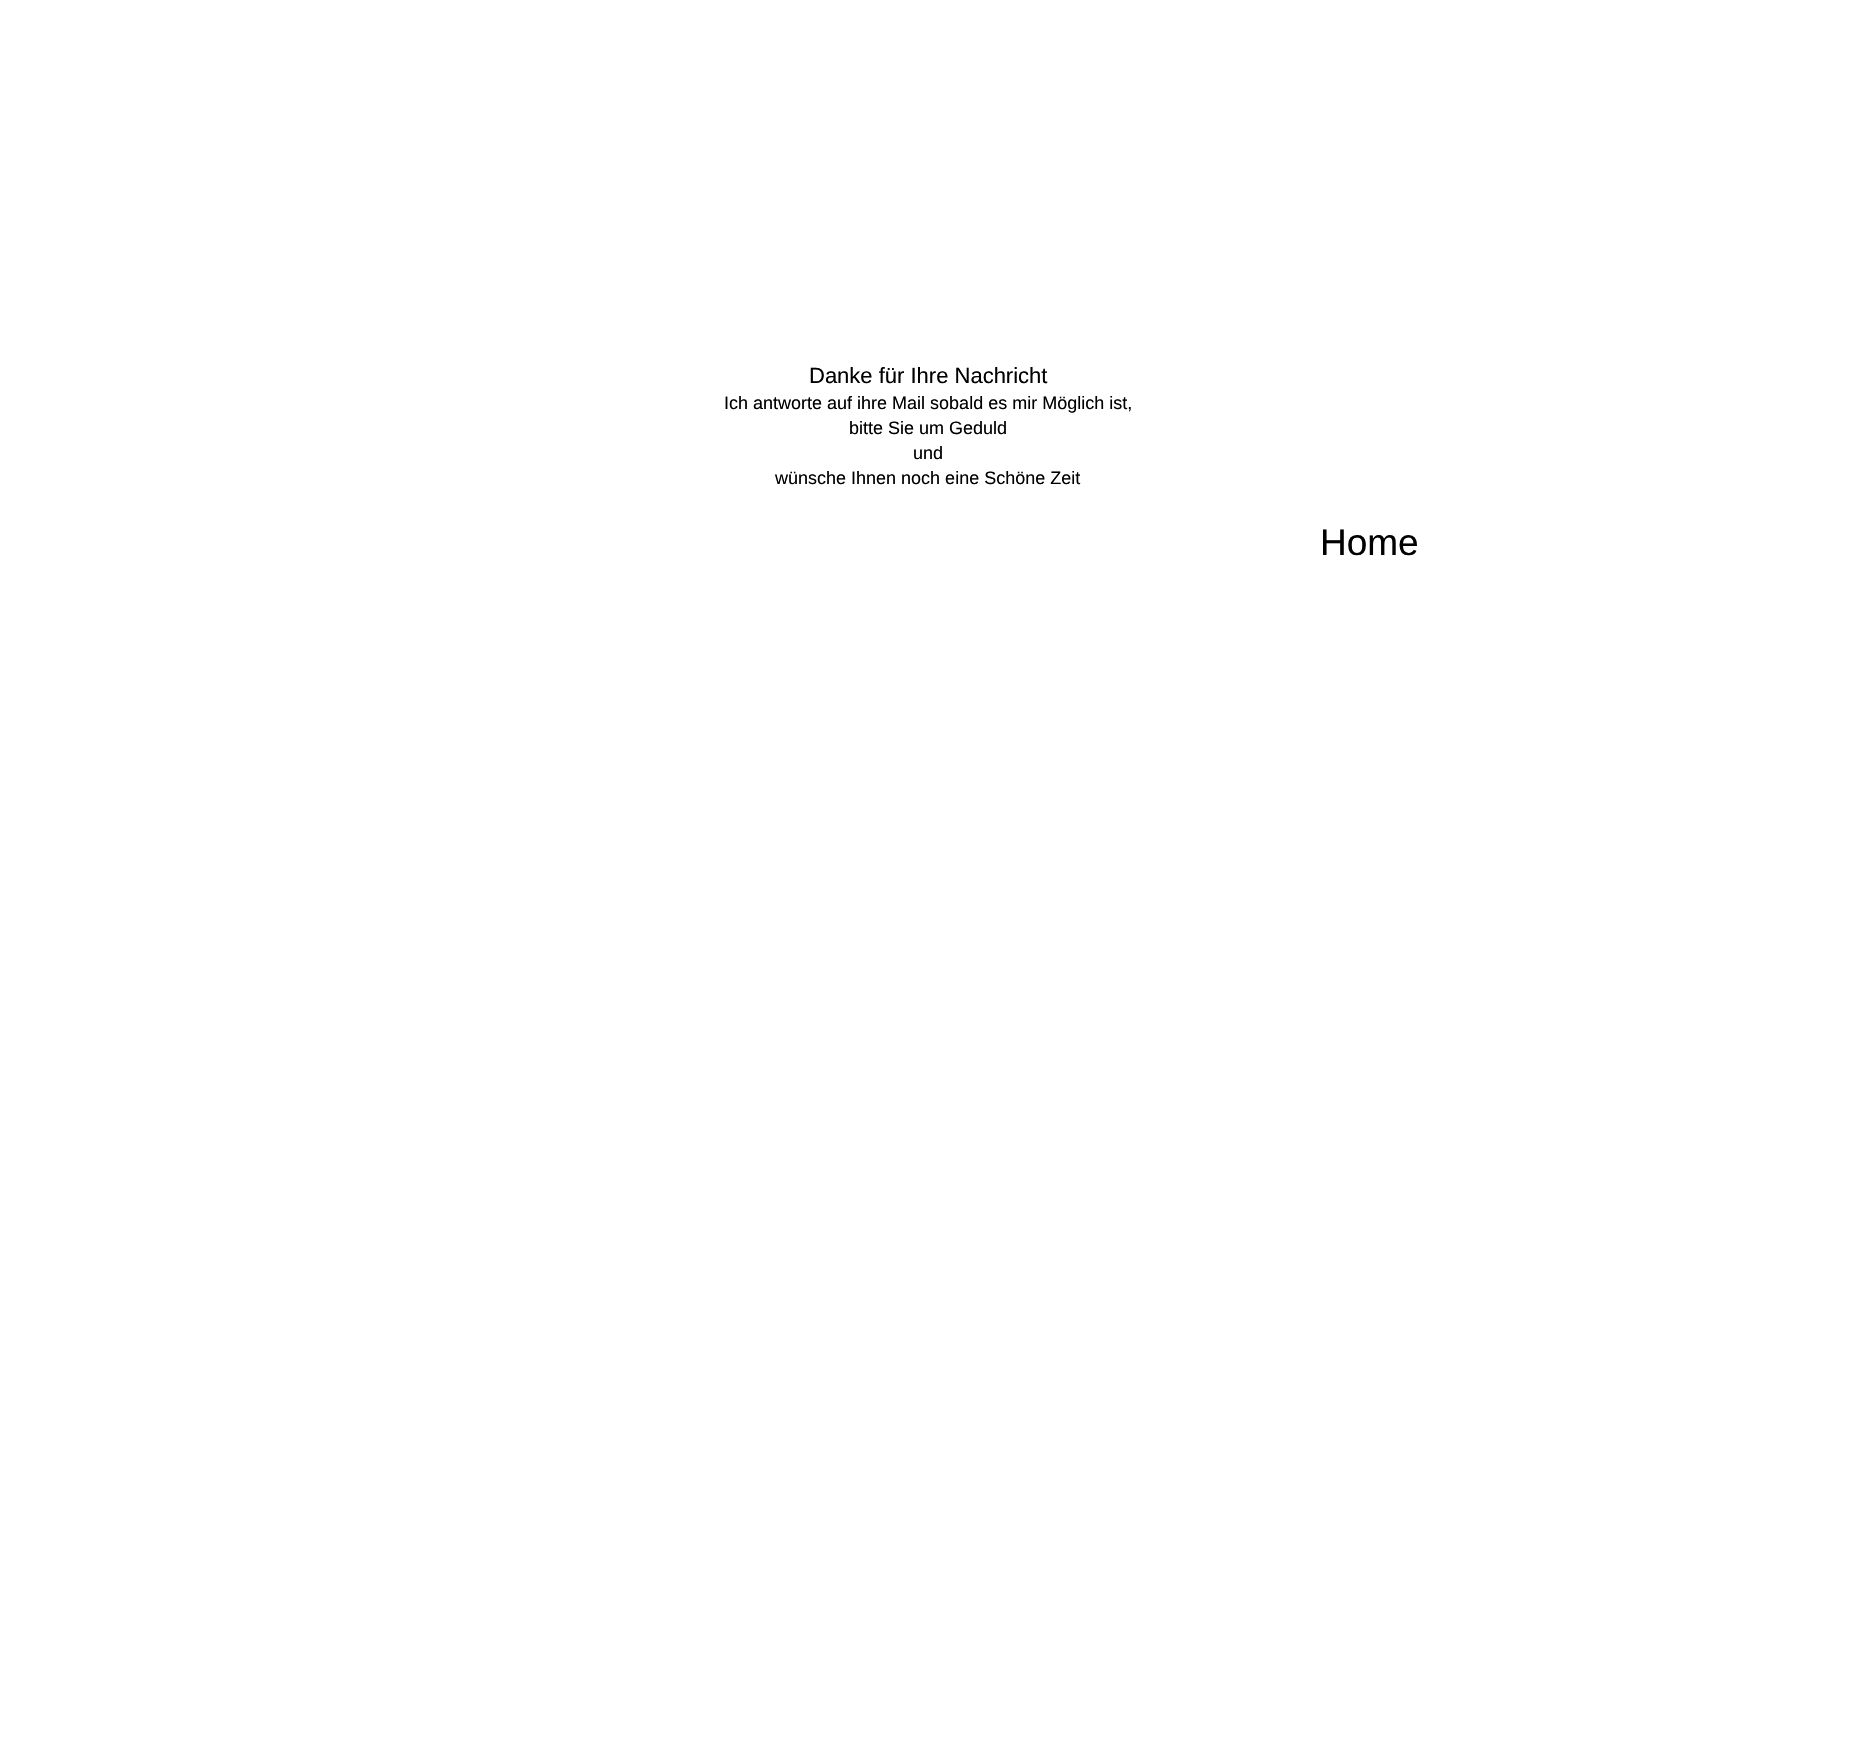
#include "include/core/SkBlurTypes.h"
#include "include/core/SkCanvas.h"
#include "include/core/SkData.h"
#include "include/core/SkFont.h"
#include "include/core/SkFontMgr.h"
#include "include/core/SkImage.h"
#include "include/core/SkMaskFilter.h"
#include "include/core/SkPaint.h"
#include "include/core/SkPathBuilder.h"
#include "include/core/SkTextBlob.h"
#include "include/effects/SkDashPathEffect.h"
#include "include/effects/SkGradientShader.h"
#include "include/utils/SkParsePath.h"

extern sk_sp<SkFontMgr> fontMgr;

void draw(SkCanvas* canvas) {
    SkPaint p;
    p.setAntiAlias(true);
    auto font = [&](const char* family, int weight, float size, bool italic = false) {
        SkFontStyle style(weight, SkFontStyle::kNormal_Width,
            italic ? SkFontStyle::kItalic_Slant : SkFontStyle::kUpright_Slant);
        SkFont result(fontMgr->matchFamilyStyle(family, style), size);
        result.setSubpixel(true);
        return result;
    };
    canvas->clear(0xFFFFFFFF);
    auto font1 = font("Liberation Sans", 400, 22);
    p.setColor(0xFF000000);
    canvas->drawString("Danke für Ihre Nachricht", 809, 383, font1, p);
    auto font2 = font("Liberation Sans", 400, 18);
    {
        const struct { const char* s; float x, y; } items[] = {
            {"Ich antworte auf ihre Mail sobald es mir Möglich ist,", 724, 409},
            {"bitte Sie um Geduld", 849, 434},
            {"und", 913, 459},
            {"wünsche Ihnen noch eine Schöne Zeit", 775, 484},
        };
        for (auto [s, x, y] : items) {
            canvas->drawString(s, x, y, font2, p);
        }
    }
    auto font3 = font("Liberation Sans", 400, 37);
    canvas->drawString("Home", 1320, 555, font3, p);
}
